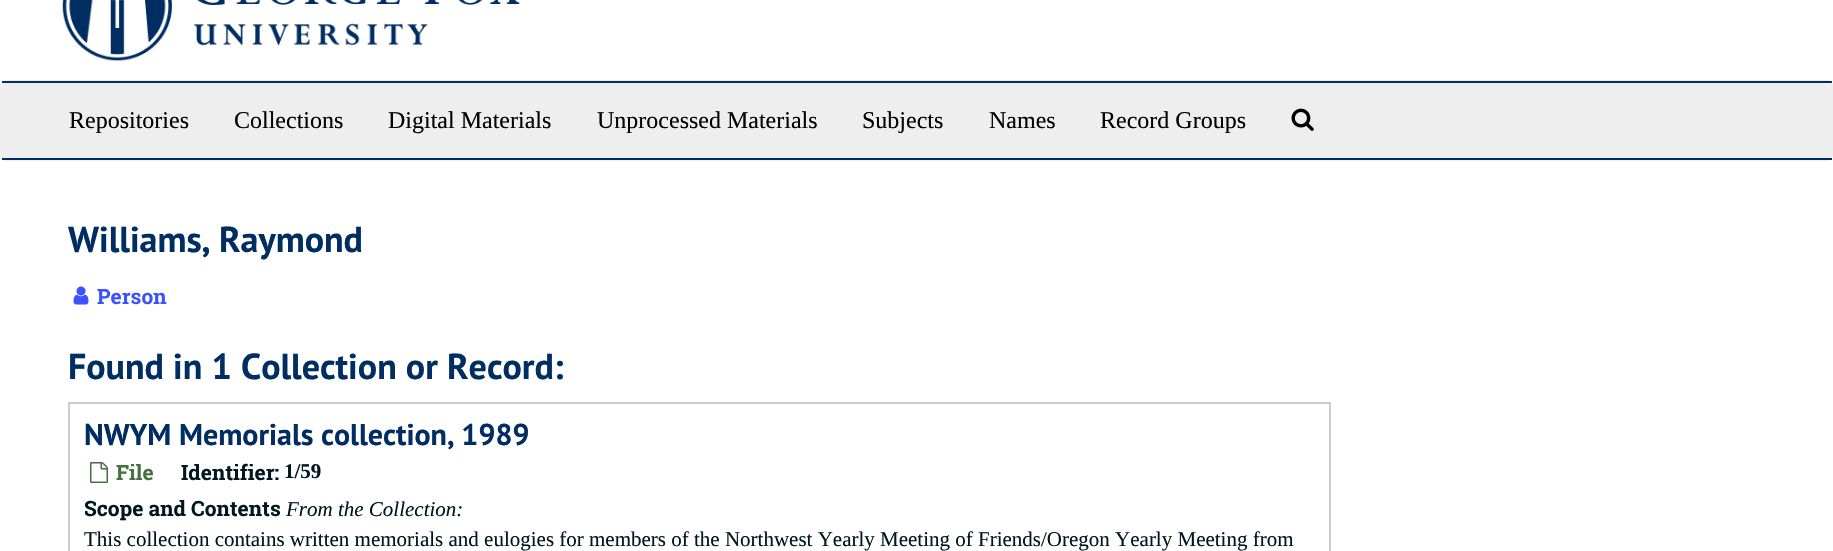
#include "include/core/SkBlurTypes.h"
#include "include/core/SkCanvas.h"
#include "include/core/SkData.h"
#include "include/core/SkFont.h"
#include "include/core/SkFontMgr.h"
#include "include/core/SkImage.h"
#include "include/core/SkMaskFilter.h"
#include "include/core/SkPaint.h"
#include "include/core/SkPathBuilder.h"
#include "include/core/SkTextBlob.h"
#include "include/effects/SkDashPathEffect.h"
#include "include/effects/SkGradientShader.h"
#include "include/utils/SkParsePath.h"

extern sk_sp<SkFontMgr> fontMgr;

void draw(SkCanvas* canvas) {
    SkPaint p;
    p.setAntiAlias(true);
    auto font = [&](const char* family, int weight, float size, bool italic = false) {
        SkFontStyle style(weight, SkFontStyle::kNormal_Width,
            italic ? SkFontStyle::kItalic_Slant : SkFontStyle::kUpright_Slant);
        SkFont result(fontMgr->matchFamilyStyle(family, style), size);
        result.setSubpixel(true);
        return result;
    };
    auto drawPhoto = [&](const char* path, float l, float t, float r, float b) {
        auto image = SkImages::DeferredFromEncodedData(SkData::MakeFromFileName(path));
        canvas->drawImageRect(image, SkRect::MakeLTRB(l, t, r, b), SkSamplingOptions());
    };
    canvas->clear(0xFFFFFFFF);
    drawPhoto("media/1.png", 62, 0, 520, 61);
    p.setStyle(SkPaint::kStroke_Style);
    p.setStrokeWidth(2);
    p.setColor(0xFFEEEEEE);
    canvas->drawRoundRect(SkRect::MakeLTRB(1, 81, 1832, 160), 5, 5, p);
    p.setStyle(SkPaint::kFill_Style);
    {
        const struct { float l, t, r, b; SkColor color; } items[] = {
            {2, 83, 1831, 158, 0xFFEEEEEE},
            {2, 81, 1832, 83, 0xFF002D62},
            {2, 158, 1832, 160, 0xFF002D62},
        };
        for (auto [l, t, r, b, color] : items) {
            p.setColor(color);
            canvas->drawRect(SkRect::MakeLTRB(l, t, r, b), p);
        }
    }
    auto font1 = font("Liberation Serif", 400, 24);
    p.setColor(0xFF000000);
    {
        const struct { const char* s; float x, y; } items[] = {
            {"Repositories", 69, 128},
            {"Collections", 234, 128},
            {"Digital Materials", 388, 128},
            {"Unprocessed Materials", 597, 128},
            {"Subjects", 862, 128},
            {"Names", 989, 128},
            {"Record Groups", 1100, 128},
        };
        for (auto [s, x, y] : items) {
            canvas->drawString(s, x, y, font1, p);
        }
    }
    drawPhoto("media/2.png", 1291, 108, 1314, 131);
    auto font2 = font("PT Sans", 700, 36);
    p.setColor(0xFF002D62);
    canvas->drawString("Williams, Raymond", 68, 252, font2, p);
    drawPhoto("media/3.png", 73, 286, 89, 305);
    auto font3 = font("Roboto Slab", 700, 21);
    p.setColor(0xFF3B52FF);
    canvas->drawString("Person", 97, 304, font3, p);
    p.setColor(0xFF002D62);
    canvas->drawString("Found in 1 Collection or Record:", 68, 379, font2, p);
    p.setStyle(SkPaint::kStroke_Style);
    p.setColor(0xFFCCCCCC);
    canvas->drawRect(SkRect::MakeLTRB(69, 403, 1330, 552), p);
    auto font4 = font("PT Sans", 700, 30);
    p.setStyle(SkPaint::kFill_Style);
    p.setColor(0xFF002D62);
    canvas->drawString("NWYM Memorials collection, 1989", 84, 445, font4, p);
    drawPhoto("media/4.png", 90, 462, 108, 483);
    p.setColor(0xFF457141);
    canvas->drawString("File", 116, 480, font3, p);
    p.setColor(0xFF00171F);
    canvas->drawString("Identifier:", 181, 480, font3, p);
    auto font5 = font("Liberation Serif", 700, 21);
    canvas->drawString("1/59", 284, 478, font5, p);
    canvas->drawString("Scope and Contents", 84, 516, font3, p);
    auto font6 = font("Liberation Serif", 400, 21, true);
    canvas->drawString("From the Collection:", 286, 516, font6, p);
    auto font7 = font("Liberation Serif", 400, 21);
    canvas->drawString("This collection contains written memorials and eulogies for members of the Northwest Yearly Meeting of Friends/Oregon Yearly Meeting from", 84, 546, font7, p);
}
